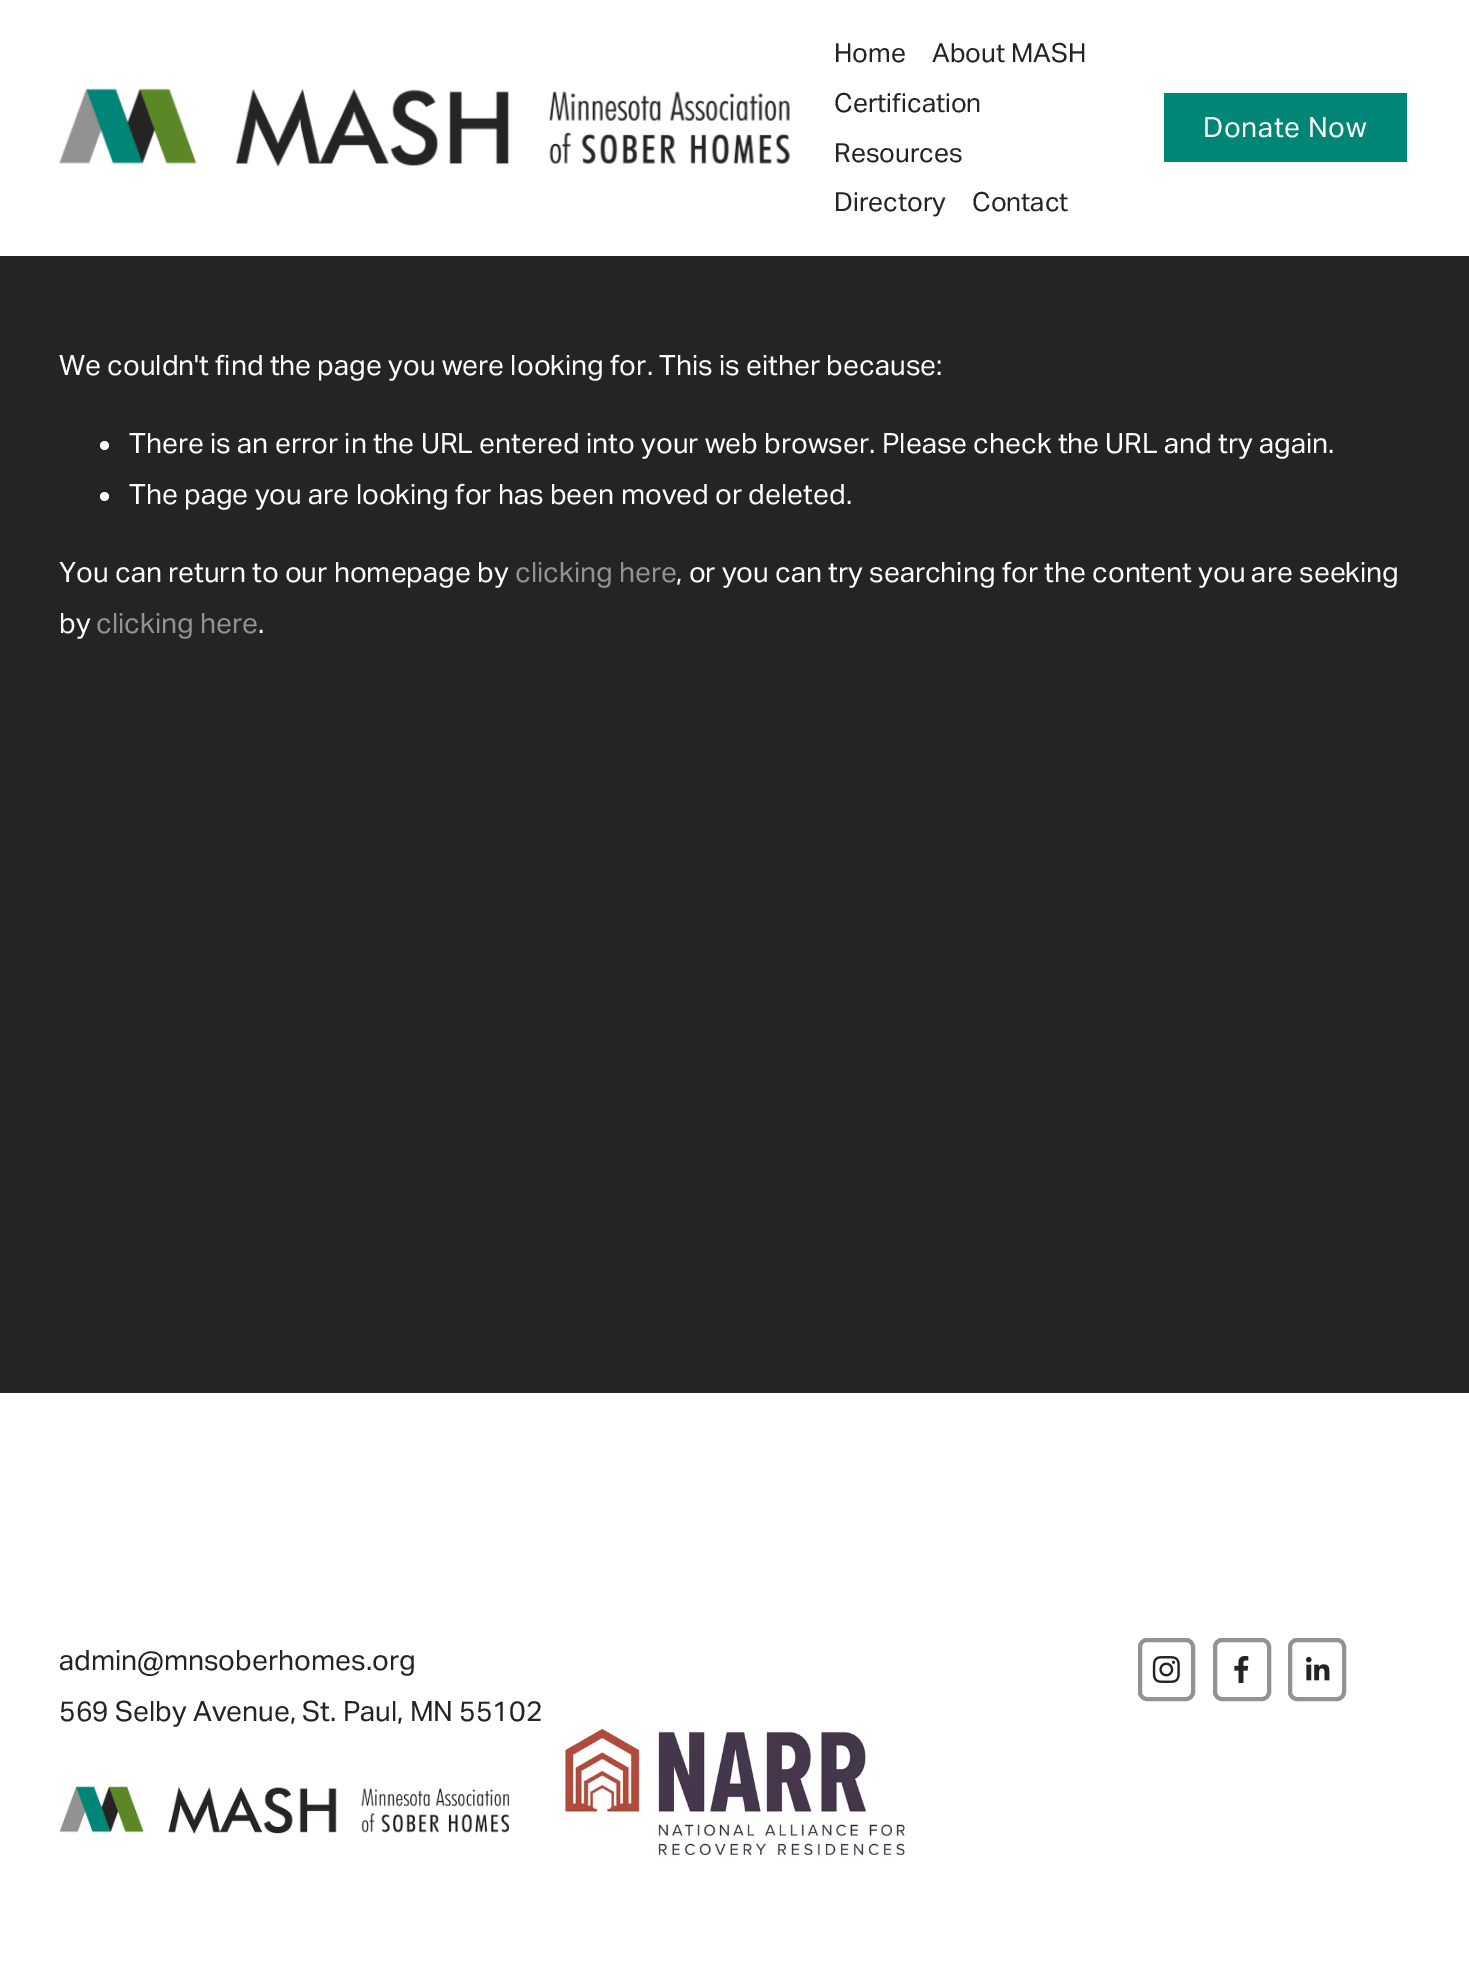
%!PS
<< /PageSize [1469 1980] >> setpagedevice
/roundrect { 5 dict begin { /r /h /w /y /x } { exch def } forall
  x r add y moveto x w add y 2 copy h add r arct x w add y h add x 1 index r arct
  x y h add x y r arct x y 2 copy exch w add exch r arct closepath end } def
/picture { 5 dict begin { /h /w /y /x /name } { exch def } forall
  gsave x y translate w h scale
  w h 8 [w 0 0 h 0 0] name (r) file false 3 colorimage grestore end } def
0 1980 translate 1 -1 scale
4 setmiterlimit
0.149 0.137 0.141 setrgbcolor
0 0 1469 1980 rectfill
1 setgray
0 0 1469 256 rectfill
(img1.rgb) 59 88 731 78 picture
/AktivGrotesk-Regular [26.25 0 0 -26.25 0 0] selectfont
0.149 0.137 0.141 setrgbcolor
834 62 moveto (Home) show
932 62 moveto (About MASH) show
834 112 moveto (Certification) show
834 162 moveto (Resources) show
834 211 moveto (Directory) show
972 211 moveto (Contact) show
0 0.522 0.463 setrgbcolor
1164 93 243 69 rectfill
/AktivGrotesk-Regular [28 0 0 -28 0 0] selectfont
1 setgray
1203 137 moveto 0.75 0 (Donate Now) ashow
59 375 moveto (We couldn't find the page you were looking for. This is either because:) show
newpath 104.5 445.5 4.5 0 360 arc closepath fill
129 453 moveto (There is an error in the URL entered into your web browser. Please check the URL and try again.) show
newpath 104.5 496.5 4.5 0 360 arc closepath fill
129 504 moveto (The page you are looking for has been moved or deleted.) show
59 582 moveto (You can return to our homepage by) show
0.576 0.569 0.573 setrgbcolor
515 582 moveto (clicking here) show
1 setgray
676 582 moveto (, or you can try searching for the content you are seeking) show
59 633 moveto (by) show
0.576 0.569 0.573 setrgbcolor
96 633 moveto (clicking here) show
1 setgray
258 633 moveto (.) show
0 1393 1469 587 rectfill
0.149 0.137 0.141 setrgbcolor
59 1670 moveto (admin@mnsoberhomes.org) show
59 1721 moveto (569 Selby Avenue, St. Paul, MN 55102) show
0.576 0.569 0.573 setrgbcolor
4 setlinewidth
1140 1640 53 59 7 roundrect stroke
(img2.rgb) 1152 1656 28 27 picture
1215 1640 54 59 7 roundrect stroke
(img3.rgb) 1234 1656 15 27 picture
1290 1640 54 59 7 roundrect stroke
(img4.rgb) 1306 1656 24 25 picture
(img5.rgb) 59 1786 451 48 picture
(img6.rgb) 565 1729 340 126 picture
showpage
